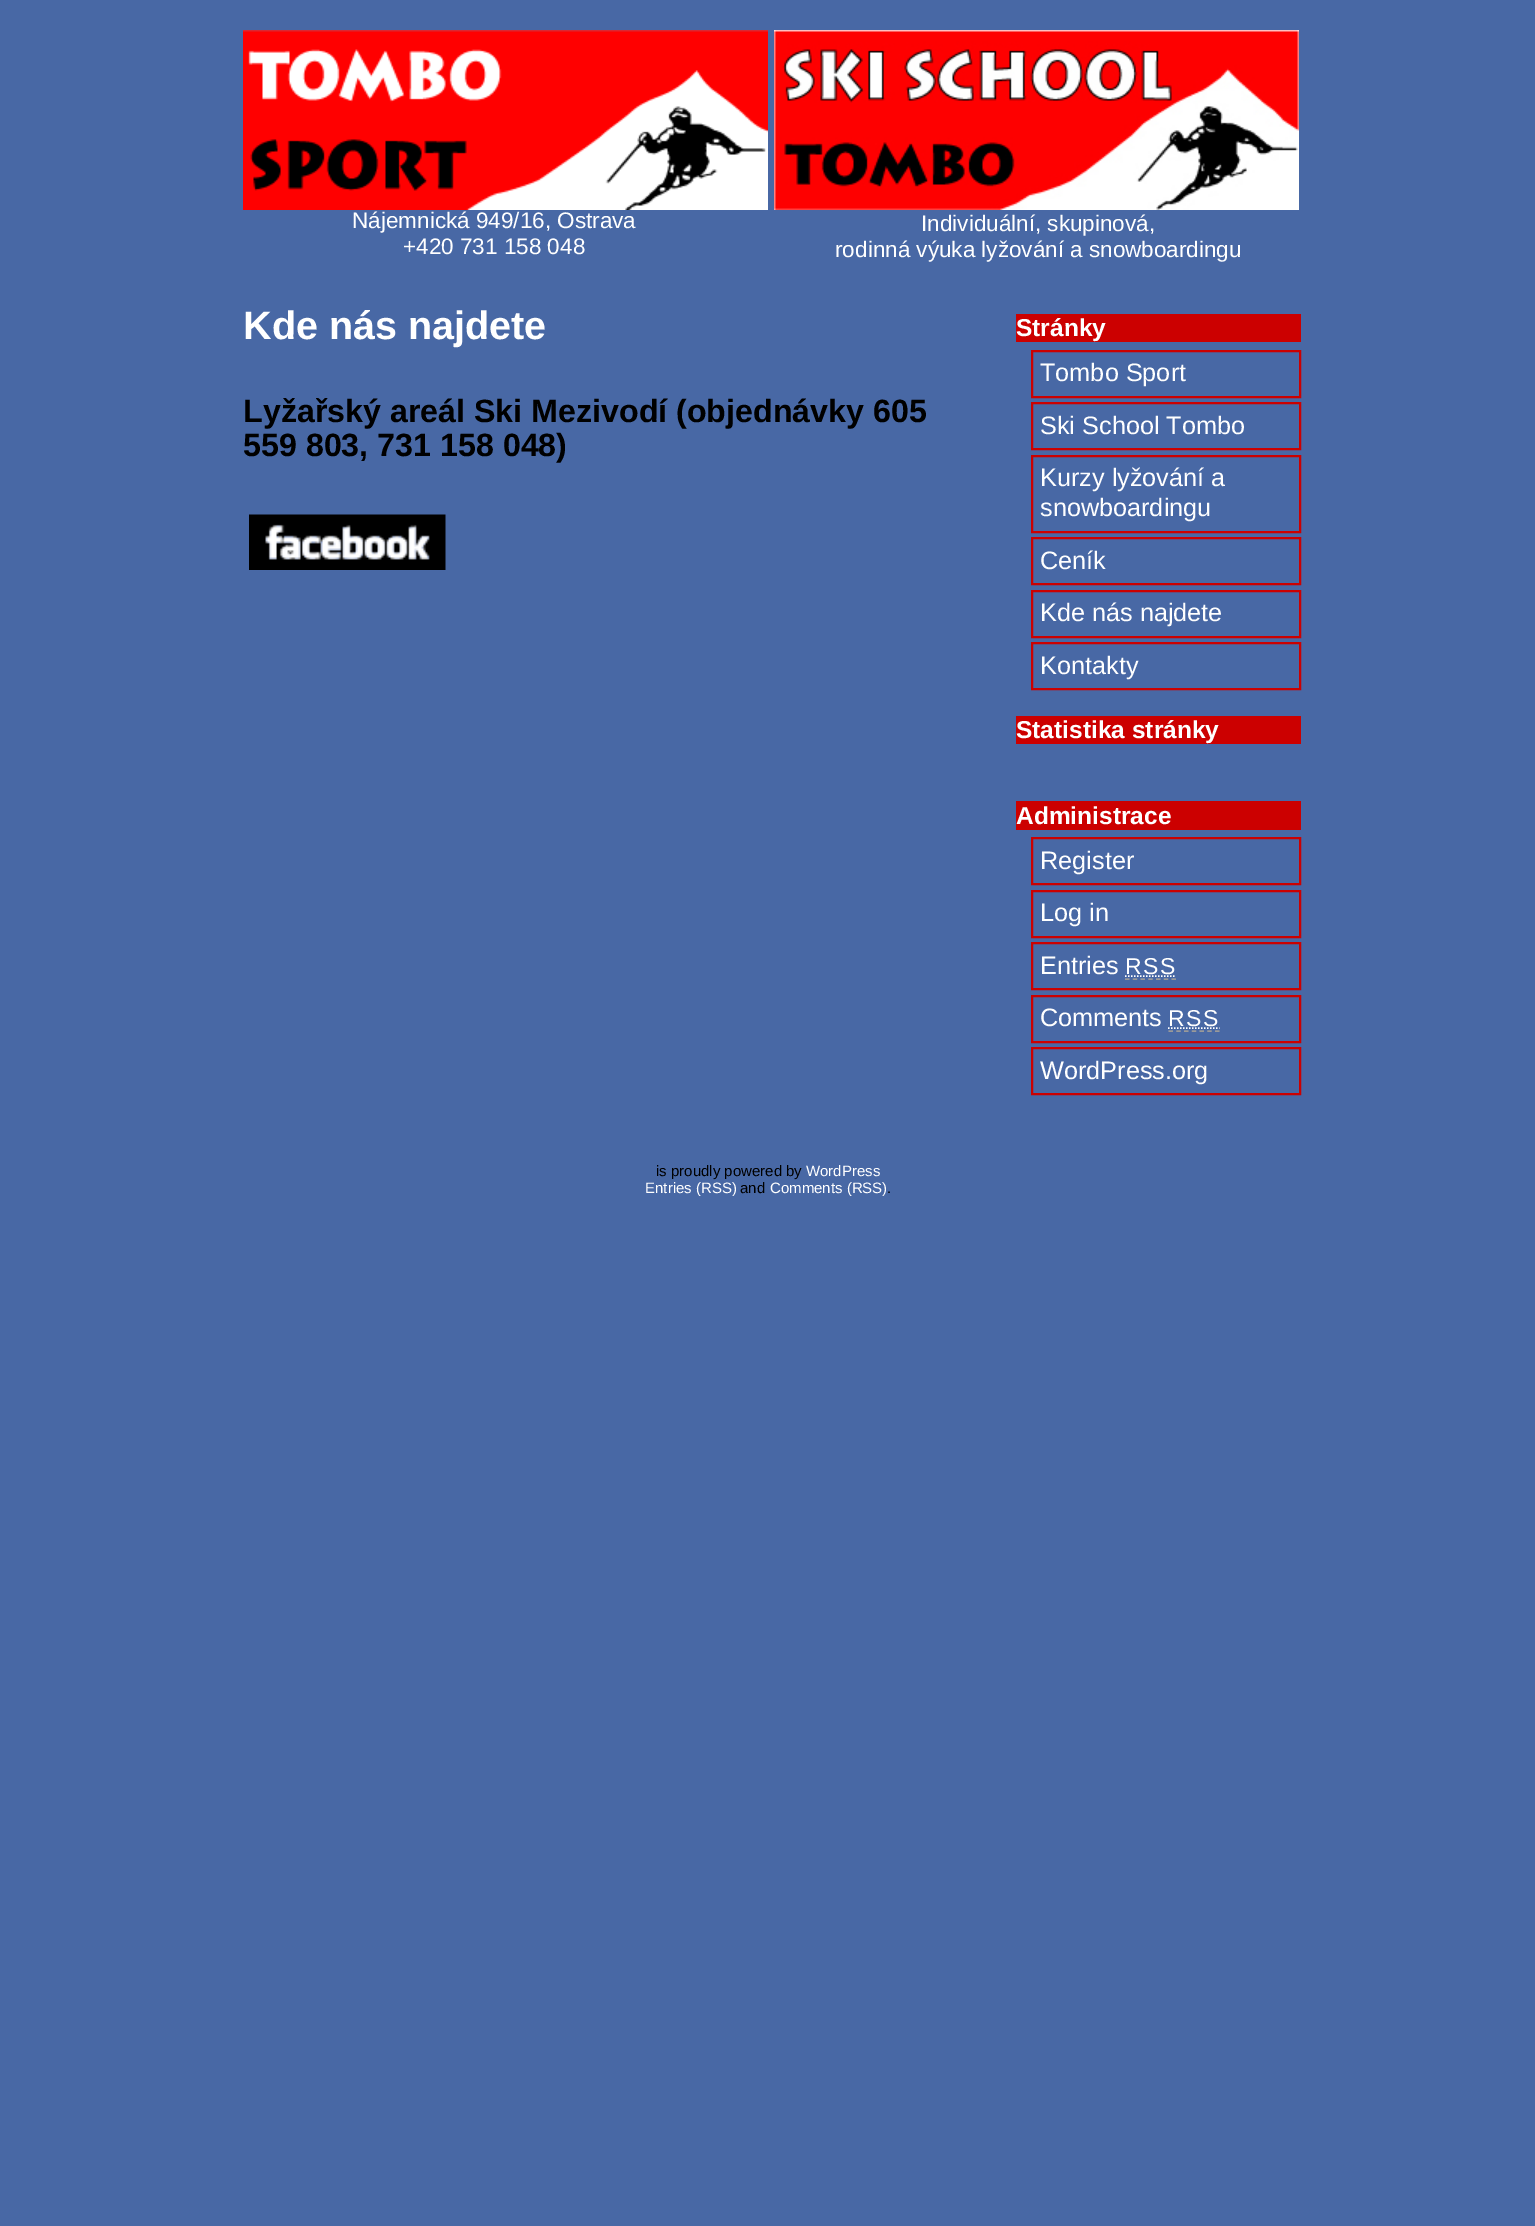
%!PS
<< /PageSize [1535 2226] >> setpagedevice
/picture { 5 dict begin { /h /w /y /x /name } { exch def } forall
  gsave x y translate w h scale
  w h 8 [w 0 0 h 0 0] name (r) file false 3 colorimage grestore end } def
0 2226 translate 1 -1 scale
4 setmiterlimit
0.282 0.408 0.647 setrgbcolor
0 0 1535 2226 rectfill
(img1.rgb) 243 30 525 180 picture
(img2.rgb) 774 30 525 180 picture
/LiberationSans-Regular [22.5 0 0 -22.5 0 0] selectfont
1 setgray
352 228 moveto (Nájemnická 949/16, Ostrava) show
403 254 moveto (+420 731 158 048) show
921 231 moveto (Individuální, skupinová,) show
835 257 moveto (rodinná výuka lyžování a snowboardingu) show
/LiberationSans-Bold [39.5 0 0 -39.5 0 0] selectfont
243 339 moveto (Kde nás najdete) show
/LiberationSans-Bold [32.2 0 0 -32.2 0 0] selectfont
0 setgray
243 422 moveto (Lyžařský areál Ski Mezivodí \(objednávky 605) show
243 456 moveto (559 803, 731 158 048\)) show
(img3.rgb) 249 514 197 56 picture
0.8 0 0 setrgbcolor
1016 314 285 28 rectfill
/LiberationSans-Bold [24.5 0 0 -24.5 0 0] selectfont
1 setgray
1016 336 moveto (Stránky) show
0.8 0 0 setrgbcolor
2 setlinewidth
1032 351 268 46 rectstroke
/LiberationSans-Regular [25.25 0 0 -25.25 0 0] selectfont
1 setgray
1040 381 moveto (Tombo Sport) show
0.8 0 0 setrgbcolor
1032 403 268 46 rectstroke
1 setgray
1040 434 moveto (Ski School Tombo) show
0.8 0 0 setrgbcolor
1032 456 268 76 rectstroke
1 setgray
1040 486 moveto (Kurzy lyžování a) show
1040 516 moveto (snowboardingu) show
0.8 0 0 setrgbcolor
1032 538 268 46 rectstroke
1 setgray
1040 569 moveto (Ceník) show
0.8 0 0 setrgbcolor
1032 591 268 46 rectstroke
1 setgray
1040 621 moveto (Kde nás najdete) show
0.8 0 0 setrgbcolor
1032 643 268 46 rectstroke
1 setgray
1040 674 moveto (Kontakty) show
0.8 0 0 setrgbcolor
1016 716 285 28 rectfill
/LiberationSans-Bold [24.5 0 0 -24.5 0 0] selectfont
1 setgray
1016 738 moveto (Statistika stránky) show
0.8 0 0 setrgbcolor
1016 801 285 29 rectfill
1 setgray
1016 824 moveto (Administrace) show
0.8 0 0 setrgbcolor
1032 838 268 46 rectstroke
/LiberationSans-Regular [25.25 0 0 -25.25 0 0] selectfont
1 setgray
1040 869 moveto (Register) show
0.8 0 0 setrgbcolor
1032 891 268 46 rectstroke
1 setgray
1040 921 moveto (Log in) show
0.8 0 0 setrgbcolor
1032 943 268 46 rectstroke
1 setgray
1040 974 moveto (Entries) show
/LiberationSans-Regular [23 0 0 -23 0 0] selectfont
1125 974 moveto 1.5 0 (RSS) ashow
0.6 setgray
1.5 setlinewidth
[4.5 3.25] 0 setdash
newpath 1125 979 moveto 1176 979 lineto stroke
1 setgray
[1.5 1.5] 0 setdash
newpath 1125 976 moveto 1176 976 lineto stroke
0.8 0 0 setrgbcolor
2 setlinewidth
[] 0 setdash
1032 996 268 46 rectstroke
/LiberationSans-Regular [25.25 0 0 -25.25 0 0] selectfont
1 setgray
1040 1026 moveto (Comments) show
/LiberationSans-Regular [23 0 0 -23 0 0] selectfont
1168 1026 moveto 1.5 0 (RSS) ashow
0.6 setgray
1.5 setlinewidth
[4.5 3.25] 0 setdash
newpath 1168.5 1031 moveto 1219.5 1031 lineto stroke
1 setgray
[1.5 1.5] 0 setdash
newpath 1168 1028 moveto 1219.5 1028 lineto stroke
0.8 0 0 setrgbcolor
2 setlinewidth
[] 0 setdash
1032 1048 268 46 rectstroke
/LiberationSans-Regular [25.25 0 0 -25.25 0 0] selectfont
1 setgray
1040 1079 moveto (WordPress.org) show
/LiberationSans-Regular [15 0 0 -15 0 0] selectfont
0 setgray
656 1176 moveto (is proudly powered by) show
1 setgray
806 1176 moveto (WordPress) show
645 1193 moveto (Entries \(RSS\)) show
0 setgray
740 1193 moveto (and) show
1 setgray
770 1193 moveto (Comments \(RSS\)) show
0 setgray
887 1193 moveto (.) show
showpage
